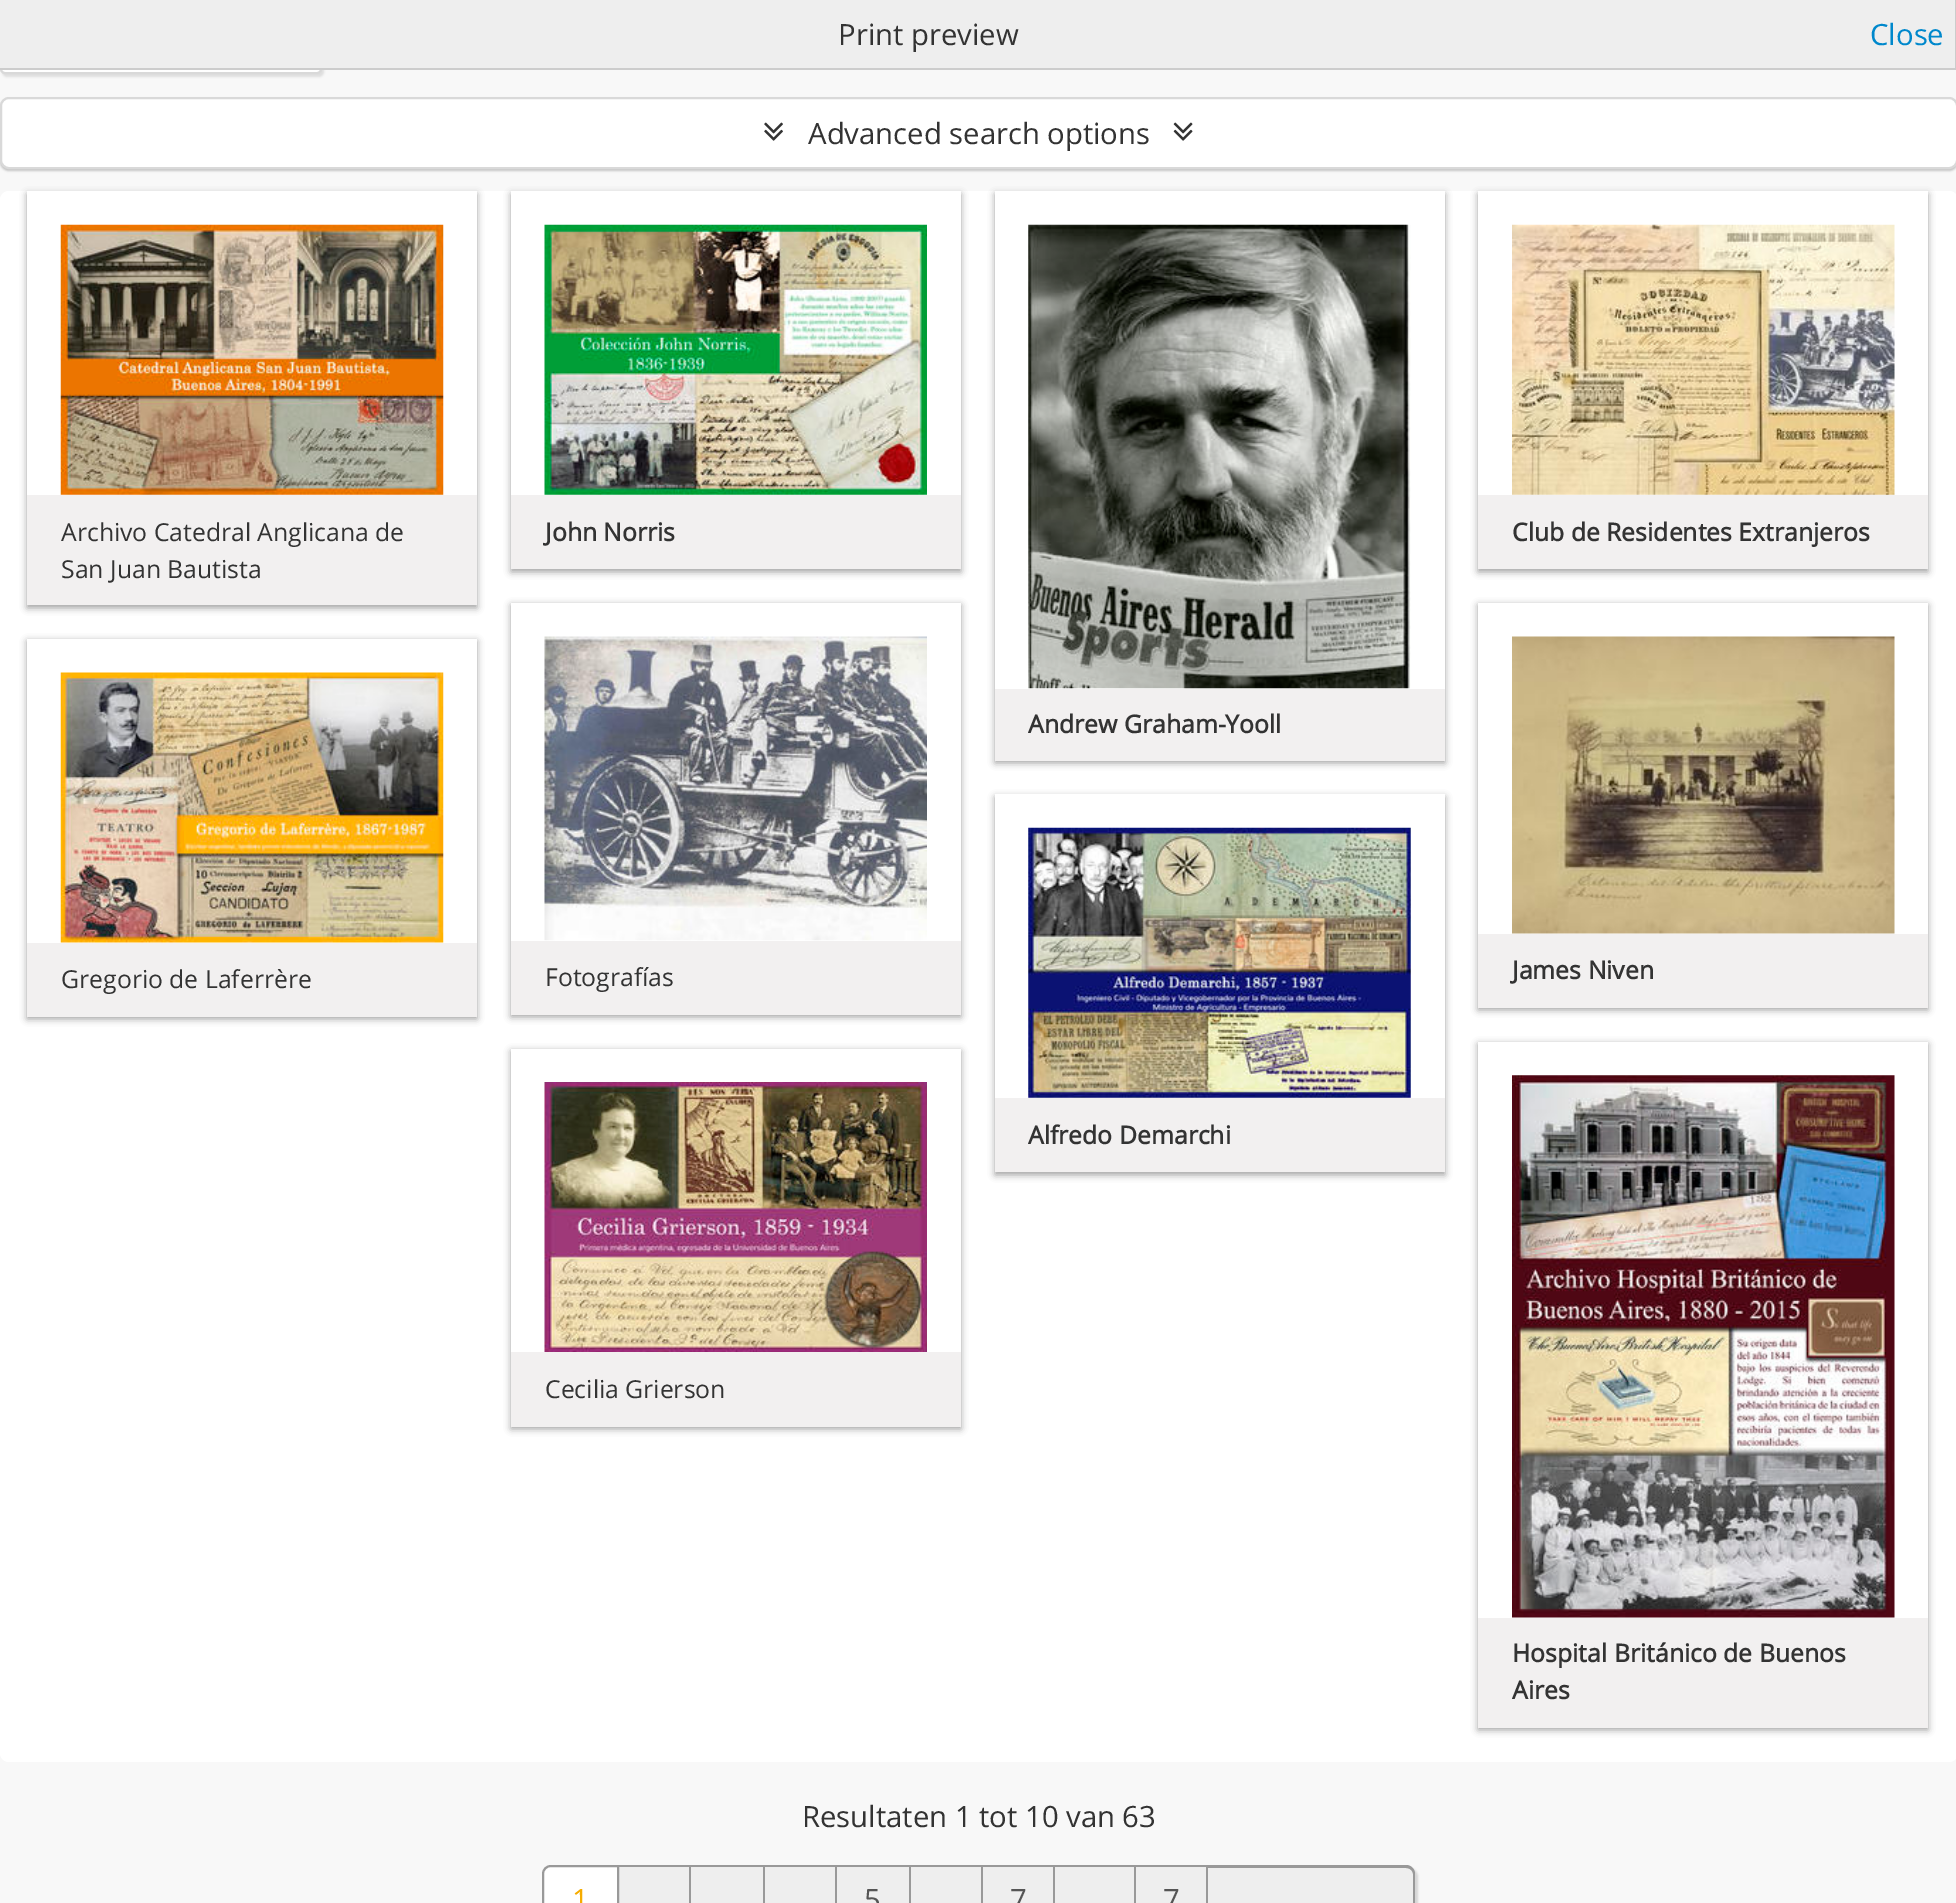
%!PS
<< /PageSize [1956 1903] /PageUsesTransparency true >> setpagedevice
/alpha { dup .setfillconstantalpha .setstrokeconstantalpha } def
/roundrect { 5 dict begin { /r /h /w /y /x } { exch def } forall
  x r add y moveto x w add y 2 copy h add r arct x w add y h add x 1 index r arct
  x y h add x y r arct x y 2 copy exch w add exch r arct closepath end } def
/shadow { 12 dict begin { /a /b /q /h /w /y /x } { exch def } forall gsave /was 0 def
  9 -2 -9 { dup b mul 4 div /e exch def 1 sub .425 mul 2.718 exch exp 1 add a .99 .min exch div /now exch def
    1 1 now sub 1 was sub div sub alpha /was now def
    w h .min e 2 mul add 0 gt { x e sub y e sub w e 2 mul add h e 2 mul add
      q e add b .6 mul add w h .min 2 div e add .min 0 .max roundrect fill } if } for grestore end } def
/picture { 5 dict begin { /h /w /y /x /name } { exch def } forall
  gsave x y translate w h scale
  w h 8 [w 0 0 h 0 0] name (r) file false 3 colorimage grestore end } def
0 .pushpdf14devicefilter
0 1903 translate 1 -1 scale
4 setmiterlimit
0.973 setgray
0 0 1956 1903 rectfill
0 setgray
2 14 322 63 5 1 0.1 shadow
1 setgray
1 12 320 61 4 roundrect gsave fill grestore
0.851 setgray
2 setlinewidth
stroke
0.933 setgray
0 0 1955 68 rectfill
0.8 setgray
1955 0 1 70 rectfill
0 68 1956 2 rectfill
/OpenSans-Regular [29.25 0 0 -29.25 0 0] selectfont
0.2 setgray
838 45 moveto (Print preview) show
0 0.533 0.8 setrgbcolor
1870 45 moveto (Close) show
0 setgray
0 99 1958 72 9 1 0.2 shadow
1 setgray
1 98 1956 70 8 roundrect gsave fill grestore
0.851 setgray
stroke
(img1.rgb) 764 122 19 19 picture
0.2 setgray
808 144 moveto (Advanced search options) show
(img2.rgb) 1173 122 20 19 picture
1 setgray
0 191 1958 1571 9 roundrect fill
0.098 setgray
27 194 450 414 0 3.5 0.4 shadow
1 setgray
27 191 450 304 rectfill
(img3.rgb) 60 224 384 271 picture
0.949 0.941 0.941 setrgbcolor
27 495 450 110 rectfill
/OpenSans-Regular [24.75 0 0 -24.75 0 0] selectfont
0.2 setgray
61 541 moveto (Archivo Catedral Anglicana de) show
61 578 moveto (San Juan Bautista) show
0.098 setgray
511 194 450 378 0 3.5 0.4 shadow
1 setgray
511 191 450 304 rectfill
(img4.rgb) 544 224 383 271 picture
0.949 0.941 0.941 setrgbcolor
511 495 450 74 rectfill
/OpenSans-Bold [24.75 0 0 -24.75 0 0] selectfont
0.2 setgray
545 541 moveto (John Norris) show
0.098 setgray
1478 194 450 378 0 3.5 0.4 shadow
1 setgray
1478 191 450 304 rectfill
(img5.rgb) 1512 224 383 271 picture
0.949 0.941 0.941 setrgbcolor
1478 495 450 74 rectfill
0.2 setgray
1512 541 moveto (Club de Residentes Extranjeros) show
0.098 setgray
995 194 450 569 0 3.5 0.4 shadow
1 setgray
995 191 450 498 rectfill
(img6.rgb) 1028 224 383 465 picture
0.949 0.941 0.941 setrgbcolor
995 689 450 72 rectfill
0.2 setgray
1028 733 moveto (Andrew Graham-Yooll) show
gsave
newpath 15 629 moveto 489 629 lineto 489 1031 lineto 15 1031 lineto closepath 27 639 moveto 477 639 lineto 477 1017 lineto 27 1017 lineto closepath eoclip newpath
0.098 setgray
27 641 450 378 0 3.5 0.4 shadow
grestore
(img7.rgb) 60 672 384 271 picture
0.949 0.941 0.941 setrgbcolor
27 943 450 74 rectfill
/OpenSans-Regular [24.75 0 0 -24.75 0 0] selectfont
0.2 setgray
61 988 moveto (Gregorio de Laferrère) show
0.098 setgray
511 605 450 412 0 3.5 0.4 shadow
1 setgray
511 603 450 338 rectfill
(img8.rgb) 544 636 383 305 picture
0.949 0.941 0.941 setrgbcolor
511 941 450 74 rectfill
0.2 setgray
545 986 moveto (Fotografías) show
0.098 setgray
1478 605 450 405 0 3.5 0.4 shadow
1 setgray
1478 603 450 331 rectfill
(img9.rgb) 1512 636 383 298 picture
0.949 0.941 0.941 setrgbcolor
1478 934 450 74 rectfill
/OpenSans-Bold [24.75 0 0 -24.75 0 0] selectfont
0.2 setgray
1512 979 moveto (James Niven) show
0.098 setgray
995 797 450 378 0 3.5 0.4 shadow
1 setgray
995 794 450 304 rectfill
(img10.rgb) 1028 827 383 271 picture
0.949 0.941 0.941 setrgbcolor
995 1098 450 74 rectfill
0.2 setgray
1028 1144 moveto (Alfredo Demarchi) show
0.098 setgray
511 1051 450 378 0 3.5 0.4 shadow
1 setgray
511 1049 450 303 rectfill
(img11.rgb) 544 1082 383 270 picture
0.949 0.941 0.941 setrgbcolor
511 1352 450 75 rectfill
/OpenSans-Regular [24.75 0 0 -24.75 0 0] selectfont
0.2 setgray
545 1398 moveto (Cecilia Grierson) show
0.098 setgray
1478 1044 450 686 0 3.5 0.4 shadow
1 setgray
1478 1042 450 576 rectfill
(img12.rgb) 1512 1075 383 543 picture
0.949 0.941 0.941 setrgbcolor
1478 1618 450 110 rectfill
/OpenSans-Bold [24.75 0 0 -24.75 0 0] selectfont
0.2 setgray
1512 1662 moveto (Hospital Británico de Buenos) show
1512 1699 moveto (Aires) show
/OpenSans-Regular [29.25 0 0 -29.25 0 0] selectfont
802 1827 moveto (Resultaten 1 tot 10 van 63) show
0.098 setgray
545 1868 873 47 9 1 0.15 shadow
0.933 setgray
619 1868 70 35 rectfill
0.6 setgray
619 1865 589 2 rectfill
689 1865 2 38 rectfill
1 setgray
newpath 551 1866 moveto 618 1866 lineto 618 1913 lineto 551 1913 lineto 546.5 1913 543 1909.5 543 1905 curveto 543 1874 lineto 543 1869.5 546.5 1866 551 1866 curveto closepath gsave fill grestore
0.6 setgray
stroke
0.965 0.675 0 setrgbcolor
572 1910 moveto (1) show
0.933 setgray
691 1868 72 35 rectfill
0.6 setgray
763 1865 2 38 rectfill
0.933 setgray
765 1868 70 35 rectfill
0.6 setgray
835 1865 2 38 rectfill
0.933 setgray
837 1868 72 35 rectfill
0.6 setgray
909 1865 2 38 rectfill
0.333 setgray
864 1910 moveto (5) show
0.933 setgray
911 1868 70 35 rectfill
0.6 setgray
981 1865 2 38 rectfill
0.933 setgray
983 1868 70 35 rectfill
0.6 setgray
1053 1865 2 38 rectfill
0.333 setgray
1010 1910 moveto (7) show
0.933 setgray
1055 1868 79 35 rectfill
0.6 setgray
1134 1865 2 38 rectfill
0.933 setgray
1136 1868 70 35 rectfill
0.6 setgray
1206 1865 2 38 rectfill
0.333 setgray
1163 1910 moveto (7) show
0.933 setgray
newpath 1208 1868 moveto 1406 1868 lineto 1410 1868 1413 1871 1413 1875 curveto 1413 1903 lineto 1413 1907 1410 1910 1406 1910 curveto 1208 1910 lineto closepath fill
0.6 setgray
newpath 1208 1865 moveto 1406 1865 lineto 1411 1865 1415 1869 1415 1874 curveto 1415 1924 lineto 1415 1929 1411 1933 1406 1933 curveto 1208 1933 lineto closepath 1208 1868 moveto 1406 1868 lineto 1410 1868 1413 1871 1413 1874 curveto 1413 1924 lineto 1413 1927 1410 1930 1406 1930 curveto 1208 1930 lineto closepath eofill
.poppdf14devicefilter showpage
